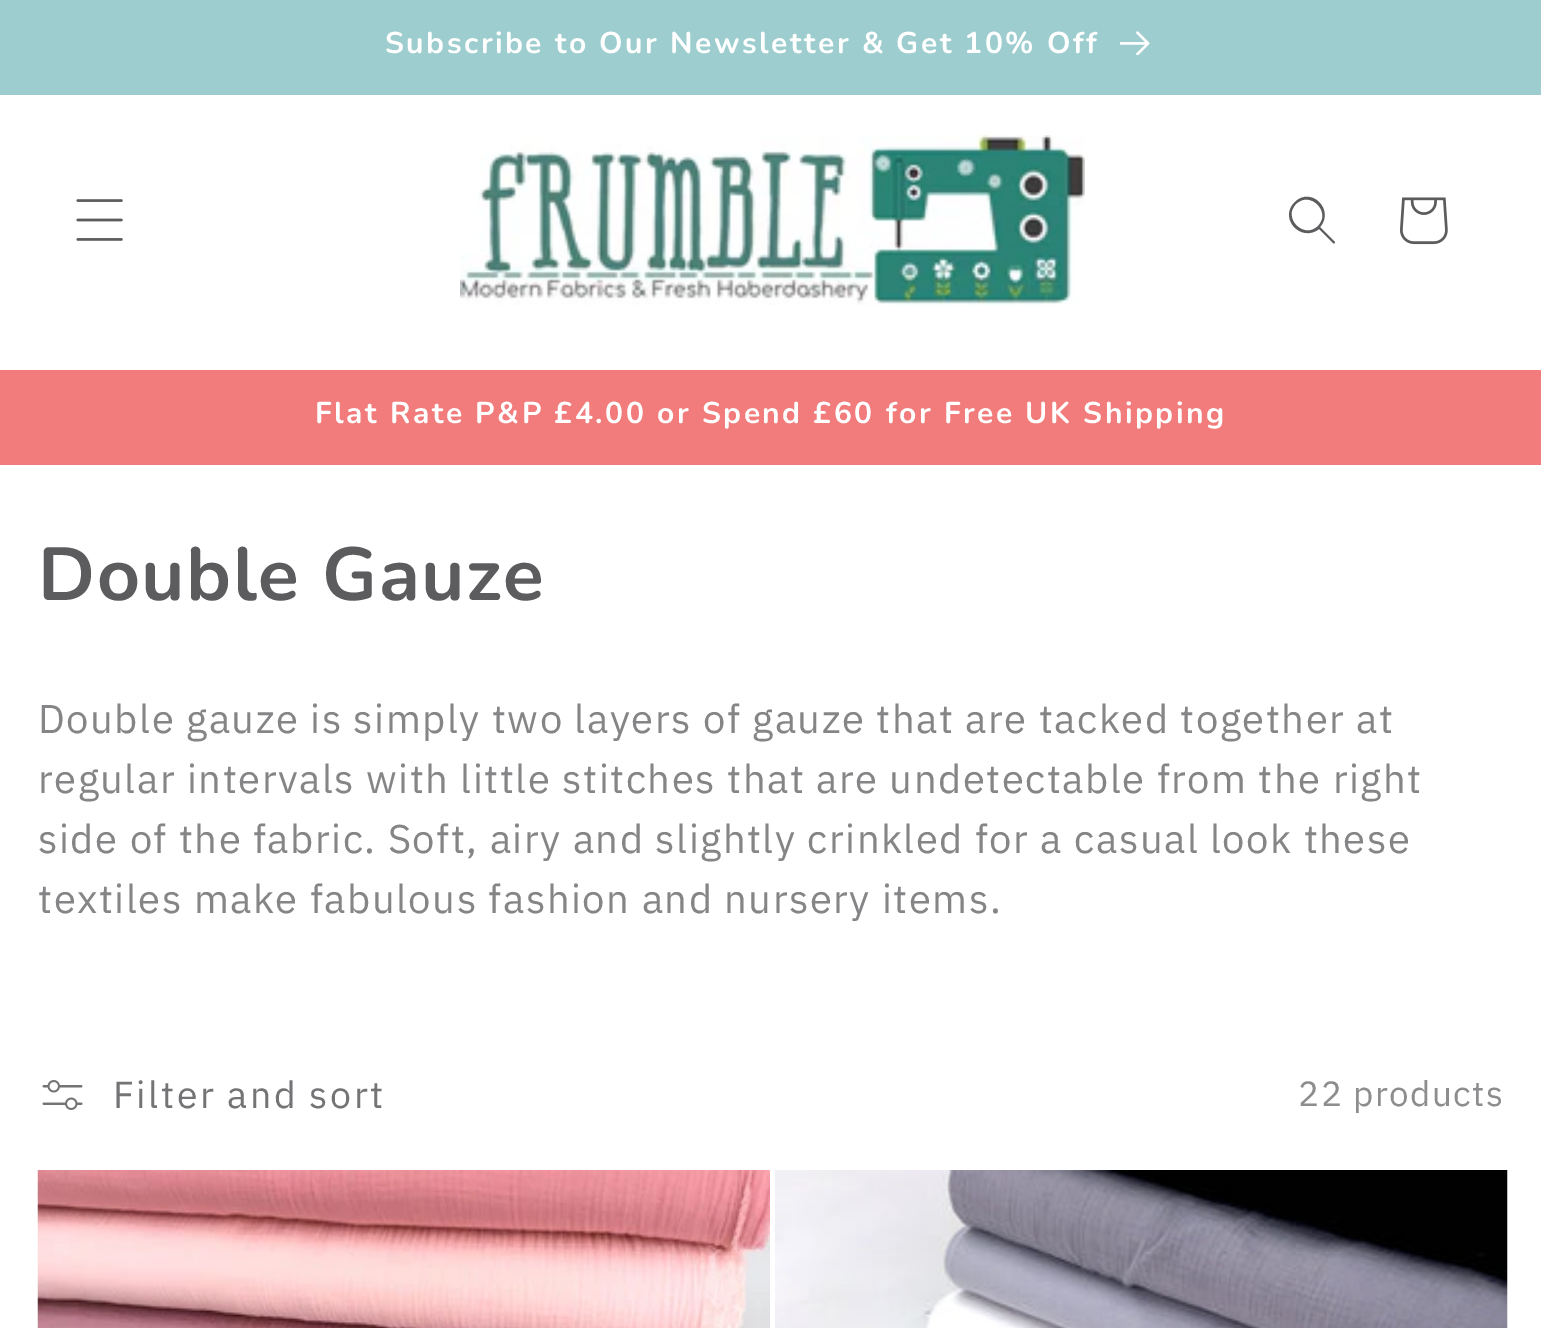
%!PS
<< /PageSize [1541 1328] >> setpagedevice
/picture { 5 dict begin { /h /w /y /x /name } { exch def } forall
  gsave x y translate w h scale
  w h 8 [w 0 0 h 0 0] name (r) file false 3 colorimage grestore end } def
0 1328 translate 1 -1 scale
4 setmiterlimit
1 setgray
0 0 1541 1328 rectfill
0.616 0.804 0.808 setrgbcolor
0 0 1541 95 rectfill
/Nunito-Bold [30 0 0 -30 0 0] selectfont
1 setgray
385 53 moveto 2.5 0 (Subscribe to Our Newsletter & Get 10% Off) ashow
(img1.rgb) 1120 31 30 24 picture
(img2.rgb) 76 199 47 42 picture
(img3.rgb) 460 135 625 170 picture
0.361 0.361 0.373 setrgbcolor
newpath 1318 226 moveto 1304 240 1282 218 1296 204 curveto 1310 190 1332 212 1318 226 curveto 1319 229 moveto 1301 243 1278 218 1295 202 curveto 1311 186 1335 210 1320 227 curveto 1335 242 lineto 1335 243 1334 244 1333 243 curveto closepath eofill
(img4.rgb) 1400 197 48 48 picture
0.949 0.482 0.482 setrgbcolor
0 370 1541 95 rectfill
1 setgray
315 423 moveto 2.5 0 (Flat Rate P&P £4.00 or Spend £60 for Free UK Shipping) ashow
/Nunito-Bold [75 0 0 -75 0 0] selectfont
0.361 0.361 0.373 setrgbcolor
38 600 moveto 1.5 0 (Double Gauze) ashow
/IBMPlexSans-Regular [40 0 0 -40 0 0] selectfont
0.522 0.522 0.529 setrgbcolor
38 733 moveto 1.5 0 (Double gauze is simply two layers of gauze that are tacked together at) ashow
38 793 moveto 1.5 0 (regular intervals with little stitches that are undetectable from the right) ashow
38 853 moveto 1.5 0 (side of the fabric. Soft, airy and slightly crinkled for a casual look these) ashow
38 913 moveto 1.5 0 (textiles make fabulous fashion and nursery items.) ashow
(img5.rgb) 42 1080 41 30 picture
/IBMPlexSans-Regular [37.5 0 0 -37.5 0 0] selectfont
0.455 0.455 0.467 setrgbcolor
113 1108 moveto 2.5 0 (Filter and sort) ashow
/IBMPlexSans-Regular [35 0 0 -35 0 0] selectfont
0.553 0.553 0.561 setrgbcolor
1298 1106 moveto 1.5 0 (22 products) ashow
(img6.rgb) 37 1170 733 158 picture
(img7.rgb) 775 1170 733 158 picture
showpage
